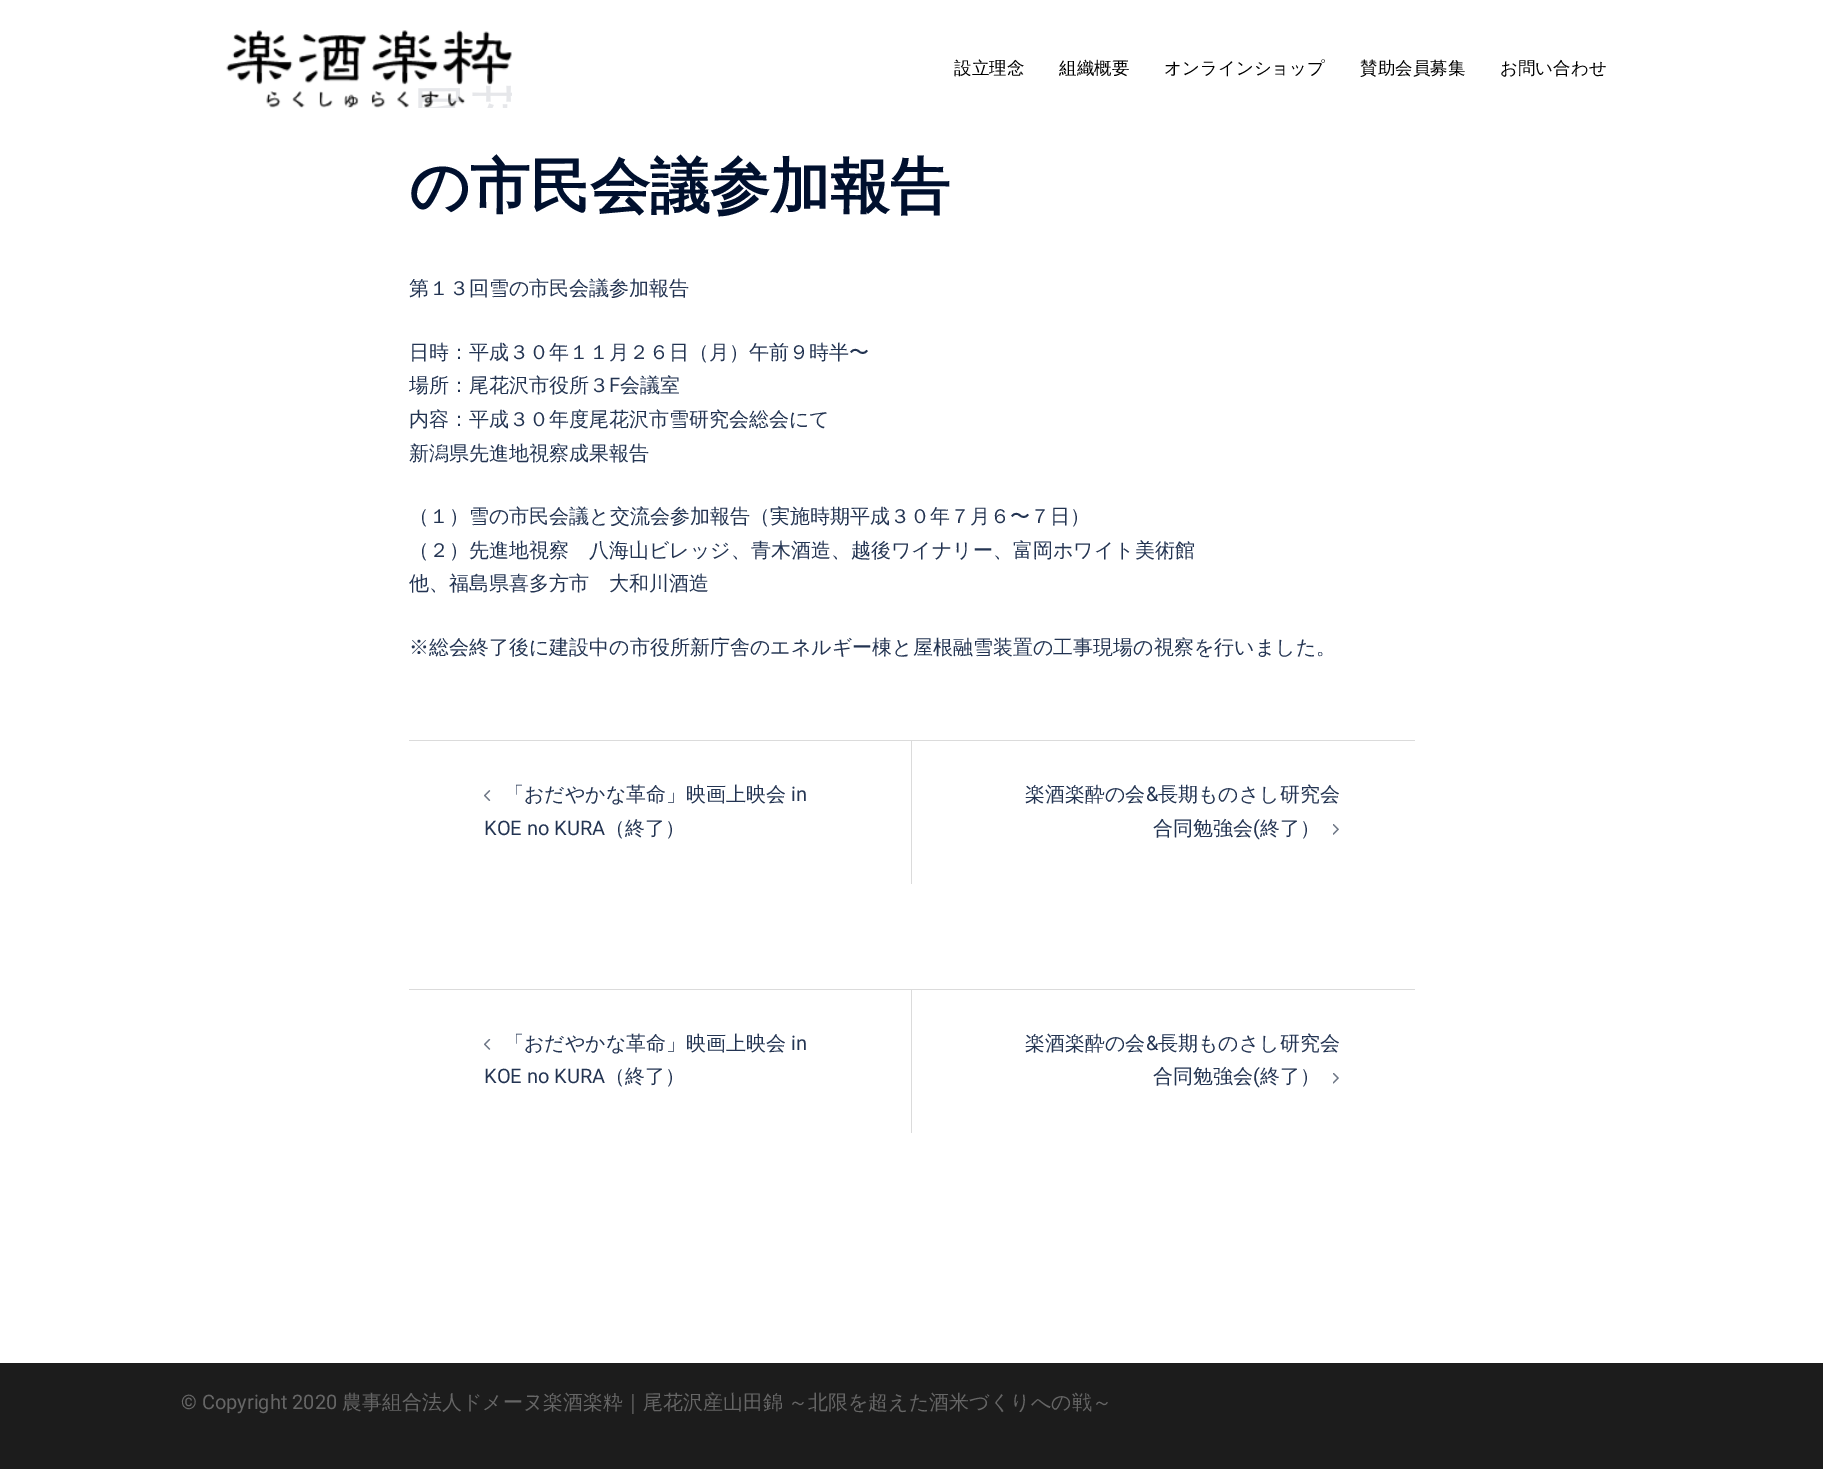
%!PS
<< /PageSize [1823 1469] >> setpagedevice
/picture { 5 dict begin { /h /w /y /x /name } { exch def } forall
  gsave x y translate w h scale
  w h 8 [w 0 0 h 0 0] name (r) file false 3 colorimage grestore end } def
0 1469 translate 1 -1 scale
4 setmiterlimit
1 setgray
0 0 1823 1469 rectfill
(img1.rgb) 226 30 286 78 picture
/WenQuanYiZenHei-Medium [17.5 0 0 -17.5 0 0] selectfont
0 setgray
954 74 moveto (設立理念) show
1059 74 moveto (組織概要) show
1164 74 moveto (オンラインショップ) show
1360 74 moveto (賛助会員募集) show
1500 74 moveto (お問い合わせ) show
/WenQuanYiZenHei-Bold [60 0 0 -60 0 0] selectfont
0 0.063 0.18 setrgbcolor
409 207 moveto (の市民会議参加報告) show
/WenQuanYiZenHei-Medium [20 0 0 -20 0 0] selectfont
0.137 0.204 0.322 setrgbcolor
409 295 moveto (第１３回雪の市民会議参加報告) show
409 359 moveto (日時：平成３０年１１月２６日（月）午前９時半〜) show
409 392 moveto (場所：尾花沢市役所３) show
/Roboto-Regular [20 0 0 -20 0 0] selectfont
609 392 moveto (F) show
/WenQuanYiZenHei-Medium [20 0 0 -20 0 0] selectfont
620 392 moveto (会議室) show
409 426 moveto (内容：平成３０年度尾花沢市雪研究会総会にて) show
409 460 moveto (新潟県先進地視察成果報告) show
409 523 moveto (（１）雪の市民会議と交流会参加報告（実施時期平成３０年７月６〜７日）) show
409 557 moveto (（２）先進地視察　八海山ビレッジ、青木酒造、越後ワイナリー、富岡ホワイト美術館) show
409 590 moveto (他、福島県喜多方市　大和川酒造) show
409 654 moveto (※総会終了後に建設中の市役所新庁舎のエネルギー棟と屋根融雪装置の工事現場の視察を行いました。) show
0.859 setgray
409 740 1006 1 rectfill
911 741 1 143 rectfill
(img2.rgb) 484 790 7 11 picture
0.137 0.204 0.322 setrgbcolor
504 801 moveto (「おだやかな革命」映画上映会) show
/Roboto-Regular [20 0 0 -20 0 0] selectfont
791 801 moveto (in) show
484 835 moveto (KOE no KURA) show
/WenQuanYiZenHei-Medium [20 0 0 -20 0 0] selectfont
605 835 moveto (（終了）) show
1025 801 moveto (楽酒楽酔の会) show
/Roboto-Regular [20 0 0 -20 0 0] selectfont
1146 801 moveto (&) show
/WenQuanYiZenHei-Medium [20 0 0 -20 0 0] selectfont
1158 801 moveto (長期ものさし研究会) show
1153 835 moveto (合同勉強会) show
/Roboto-Regular [20 0 0 -20 0 0] selectfont
1253 835 moveto (\() show
/WenQuanYiZenHei-Medium [20 0 0 -20 0 0] selectfont
1260 835 moveto (終了）) show
(img3.rgb) 1333 824 6 11 picture
0.859 setgray
409 989 1006 1 rectfill
911 990 1 143 rectfill
(img4.rgb) 484 1039 7 11 picture
0.137 0.204 0.322 setrgbcolor
504 1050 moveto (「おだやかな革命」映画上映会) show
/Roboto-Regular [20 0 0 -20 0 0] selectfont
791 1050 moveto (in) show
484 1083 moveto (KOE no KURA) show
/WenQuanYiZenHei-Medium [20 0 0 -20 0 0] selectfont
605 1083 moveto (（終了）) show
1025 1050 moveto (楽酒楽酔の会) show
/Roboto-Regular [20 0 0 -20 0 0] selectfont
1146 1050 moveto (&) show
/WenQuanYiZenHei-Medium [20 0 0 -20 0 0] selectfont
1158 1050 moveto (長期ものさし研究会) show
1153 1083 moveto (合同勉強会) show
/Roboto-Regular [20 0 0 -20 0 0] selectfont
1253 1083 moveto (\() show
/WenQuanYiZenHei-Medium [20 0 0 -20 0 0] selectfont
1260 1083 moveto (終了）) show
(img5.rgb) 1333 1073 6 11 picture
0.11 setgray
0 1363 1823 106 rectfill
/Roboto-Regular [20 0 0 -20 0 0] selectfont
0.4 setgray
181 1409 moveto (© Copyright 2020) show
/WenQuanYiZenHei-Medium [20 0 0 -20 0 0] selectfont
342 1409 moveto (農事組合法人ドメーヌ楽酒楽粋｜尾花沢産山田錦) show
788 1409 moveto (～北限を超えた酒米づくりへの戦～) show
showpage
